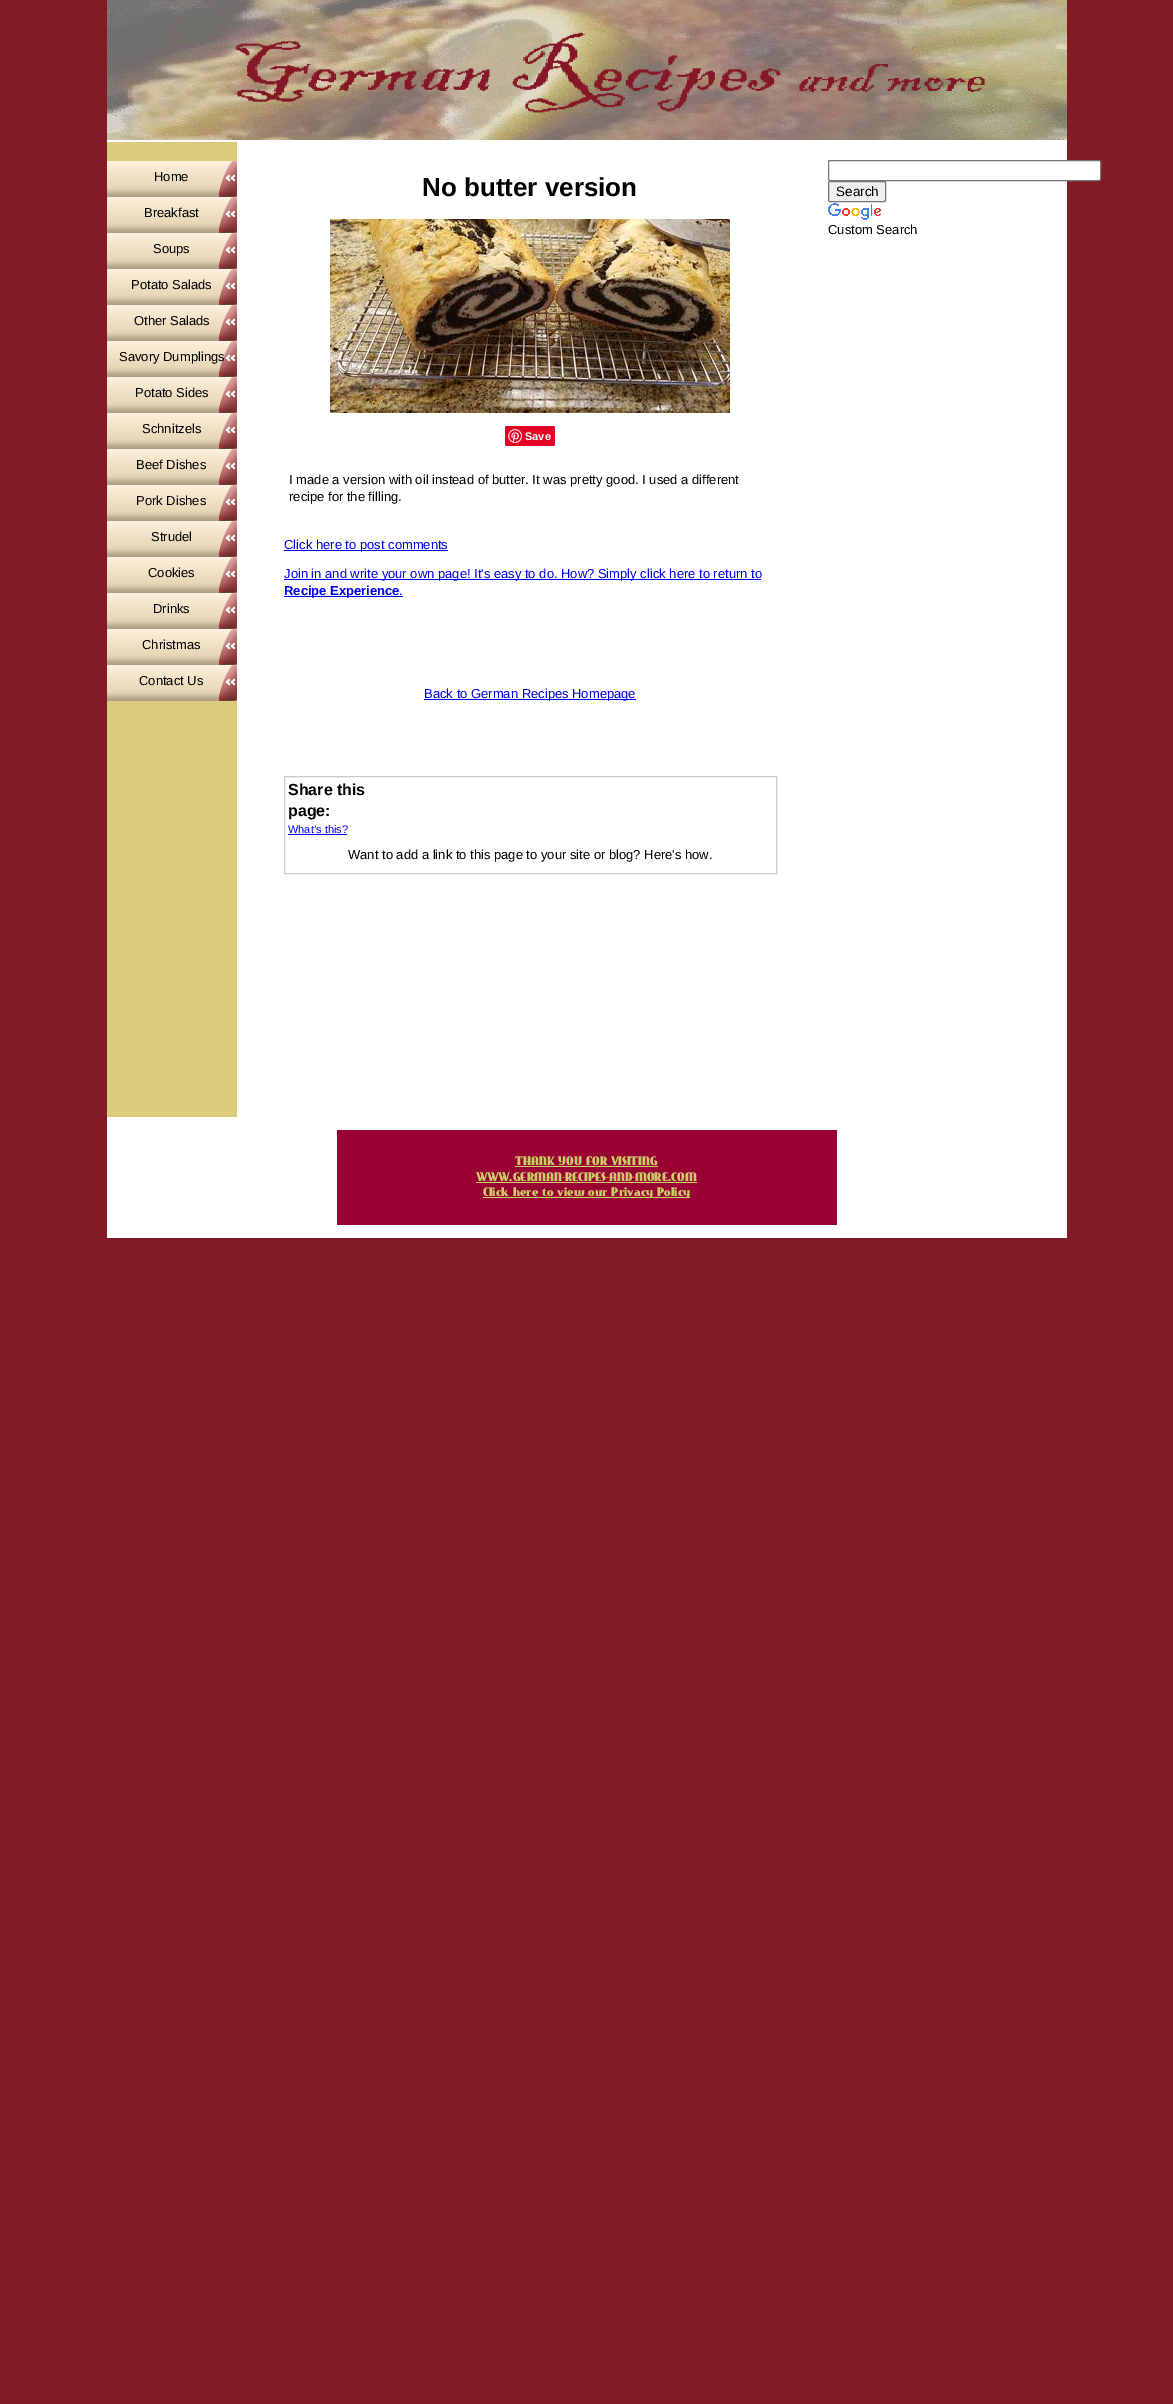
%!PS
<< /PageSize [1173 2404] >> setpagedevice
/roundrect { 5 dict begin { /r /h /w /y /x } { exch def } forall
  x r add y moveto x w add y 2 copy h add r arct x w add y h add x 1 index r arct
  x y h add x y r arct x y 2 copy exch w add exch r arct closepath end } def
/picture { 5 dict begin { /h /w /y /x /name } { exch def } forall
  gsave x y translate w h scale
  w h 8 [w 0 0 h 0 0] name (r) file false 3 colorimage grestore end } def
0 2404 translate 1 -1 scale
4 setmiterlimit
0.514 0.106 0.153 setrgbcolor
0 0 1173 2404 rectfill
1 setgray
107 140 960 1098 rectfill
(img1.rgb) 107 0 960 140 picture
0.863 0.796 0.49 setrgbcolor
107 142 130 975 rectfill
(img2.rgb) 107 161 130 36 picture
/LiberationSans-Regular [13 0 0 -13 0 0] selectfont
0 setgray
154 181 moveto (Home) show
(img2.rgb) 107 197 130 36 picture
144 217 moveto (Breakfast) show
(img2.rgb) 107 233 130 36 picture
153 253 moveto (Soups) show
(img2.rgb) 107 269 130 36 picture
131 289 moveto (Potato Salads) show
(img2.rgb) 107 305 130 36 picture
134 325 moveto (Other Salads) show
(img2.rgb) 107 341 130 36 picture
119 361 moveto (Savory Dumplings) show
(img2.rgb) 107 377 130 36 picture
135 397 moveto (Potato Sides) show
(img2.rgb) 107 413 130 36 picture
142 433 moveto (Schnitzels) show
(img2.rgb) 107 449 130 36 picture
136 469 moveto (Beef Dishes) show
(img2.rgb) 107 485 130 36 picture
136 505 moveto (Pork Dishes) show
(img2.rgb) 107 521 130 36 picture
151 541 moveto (Strudel) show
(img2.rgb) 107 557 130 36 picture
148 577 moveto (Cookies) show
(img2.rgb) 107 593 130 36 picture
153 613 moveto (Drinks) show
(img2.rgb) 107 629 130 36 picture
142 649 moveto (Christmas) show
(img2.rgb) 107 665 130 36 picture
139 685 moveto (Contact Us) show
/LiberationSans-Bold [26 0 0 -26 0 0] selectfont
422 196 moveto (No butter version) show
(img3.rgb) 330 219 400 194 picture
0.902 0 0.137 setrgbcolor
505 426 50 20 2 roundrect fill
(img4.rgb) 508 429 14 14 picture
/LiberationSans-Bold [11 0 0 -11 0 0] selectfont
1 setgray
525 440 moveto (Save) show
/LiberationSans-Regular [13 0 0 -13 0 0] selectfont
0 setgray
289 484 moveto (I made a version with oil instead of butter. It was pretty good. I used a different) show
289 501 moveto (recipe for the filling.) show
0 0 0.933 setrgbcolor
284 550 164 1 rectfill
284 549 moveto (Click here to post comments) show
284 579 477 1 rectfill
284 578 moveto (Join in and write your own page! It's easy to do. How? Simply click here to return to) show
284 596 119 1 rectfill
/LiberationSans-Bold [13 0 0 -13 0 0] selectfont
284 595 moveto (Recipe Experience) show
/LiberationSans-Regular [13 0 0 -13 0 0] selectfont
399 595 moveto (.) show
424 699 212 1 rectfill
424 698 moveto (Back to German Recipes Homepage) show
0.8 setgray
284.5 776.5 492 97 rectstroke
/LiberationSans-Bold [16 0 0 -16 0 0] selectfont
0 setgray
288 795 moveto (Share this) show
288 816 moveto (page:) show
/LiberationSans-Regular [11 0 0 -11 0 0] selectfont
0 0 0.933 setrgbcolor
288 833 moveto (What’s this?) show
288 834 59 1 rectfill
/LiberationSans-Regular [13 0 0 -13 0 0] selectfont
0 setgray
348 859 moveto (Want to add a link to this page to your site or blog? Here's how.) show
1 setgray
828.5 160.5 272 20 1.5 roundrect gsave fill grestore
0.463 setgray
stroke
0.937 setgray
828.5 181.5 57 20 1.5 roundrect gsave fill grestore
0.463 setgray
stroke
/LiberationSans-Regular [13.5 0 0 -13.5 0 0] selectfont
0 setgray
836 196 moveto (Search) show
(img5.rgb) 828 203 53 17 picture
/LiberationSans-Regular [13 0 0 -13 0 0] selectfont
828 234 moveto (Custom Search) show
0.6 0 0.2 setrgbcolor
337 1130 500 95 rectfill
/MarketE-Regular [12 0 0 -12 0 0] selectfont
0.8 0.8 0.4 setrgbcolor
515 1165 moveto (THANK YOU FOR VISITING) show
515 1166 143 1 rectfill
476 1181 moveto (WWW.GERMAN-RECIPES-AND-MORE.COM) show
476 1182 221 1 rectfill
483 1197 207 1 rectfill
483 1196 moveto (Click here to view our Privacy Policy) show
showpage
